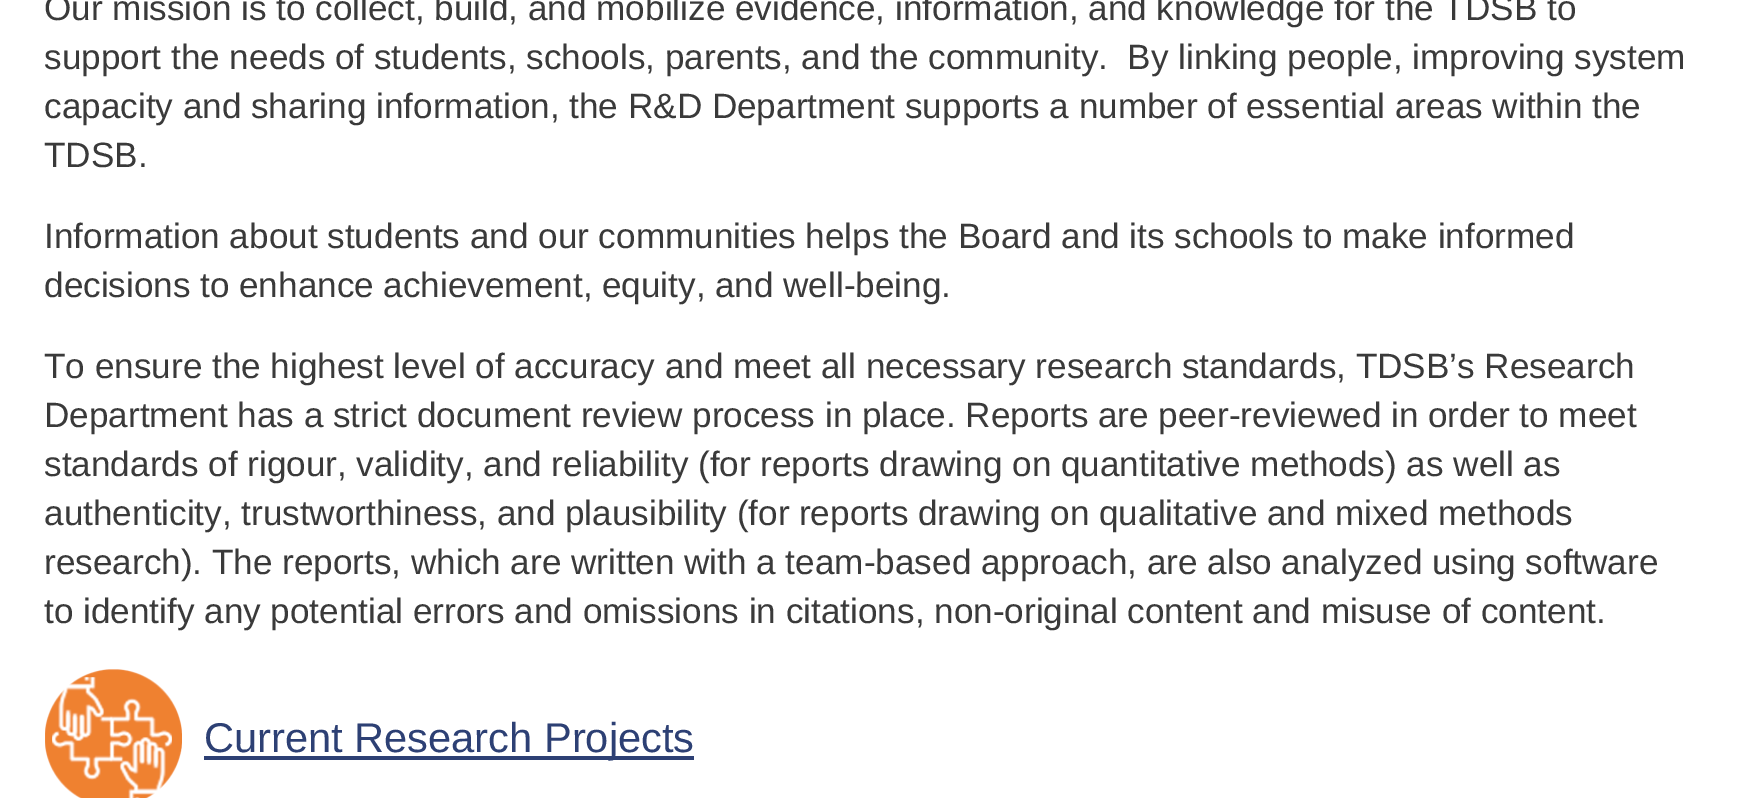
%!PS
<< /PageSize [1759 798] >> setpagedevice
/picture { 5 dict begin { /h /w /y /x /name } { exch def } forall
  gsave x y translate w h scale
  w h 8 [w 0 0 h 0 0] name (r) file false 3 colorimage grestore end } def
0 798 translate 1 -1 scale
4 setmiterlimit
1 setgray
0 0 1759 798 rectfill
/LiberationSans-Regular [35.15 0 0 -35.15 0 0] selectfont
0.227 setgray
44 20 moveto -0.1 0 32 (Our mission is to collect, build, and mobilize evidence, information, and knowledge for the TDSB to) widthshow
44 69 moveto -0.1 0 32 (support the needs of students, schools, parents, and the community.  By linking people, improving system) widthshow
44 118 moveto -0.1 0 32 (capacity and sharing information, the R&D Department supports a number of essential areas within the) widthshow
44 167 moveto (TDSB.) show
44 248 moveto -0.1 0 32 (Information about students and our communities helps the Board and its schools to make informed) widthshow
44 297 moveto -0.25 0 32 (decisions to enhance achievement, equity, and well-being.) widthshow
44 378 moveto -0.1 0 32 (To ensure the highest level of accuracy and meet all necessary research standards, TDSB’s Research) widthshow
44 427 moveto -0.1 0 32 (Department has a strict document review process in place. Reports are peer-reviewed in order to meet) widthshow
44 476 moveto -0.1 0 32 (standards of rigour, validity, and reliability \(for reports drawing on quantitative methods\) as well as) widthshow
44 525 moveto -0.25 0 32 (authenticity, trustworthiness, and plausibility \(for reports drawing on qualitative and mixed methods) widthshow
44 574 moveto -0.1 0 32 (research\). The reports, which are written with a team-based approach, are also analyzed using software) widthshow
44 623 moveto -0.1 0 32 (to identify any potential errors and omissions in citations, non-original content and misuse of content.) widthshow
(img1.rgb) 45 669 137 129 picture
0.176 0.251 0.455 setrgbcolor
204 756 490 4 rectfill
/LiberationSans-Regular [41.6 0 0 -41.6 0 0] selectfont
204 752 moveto (Current Research Projects) show
showpage
